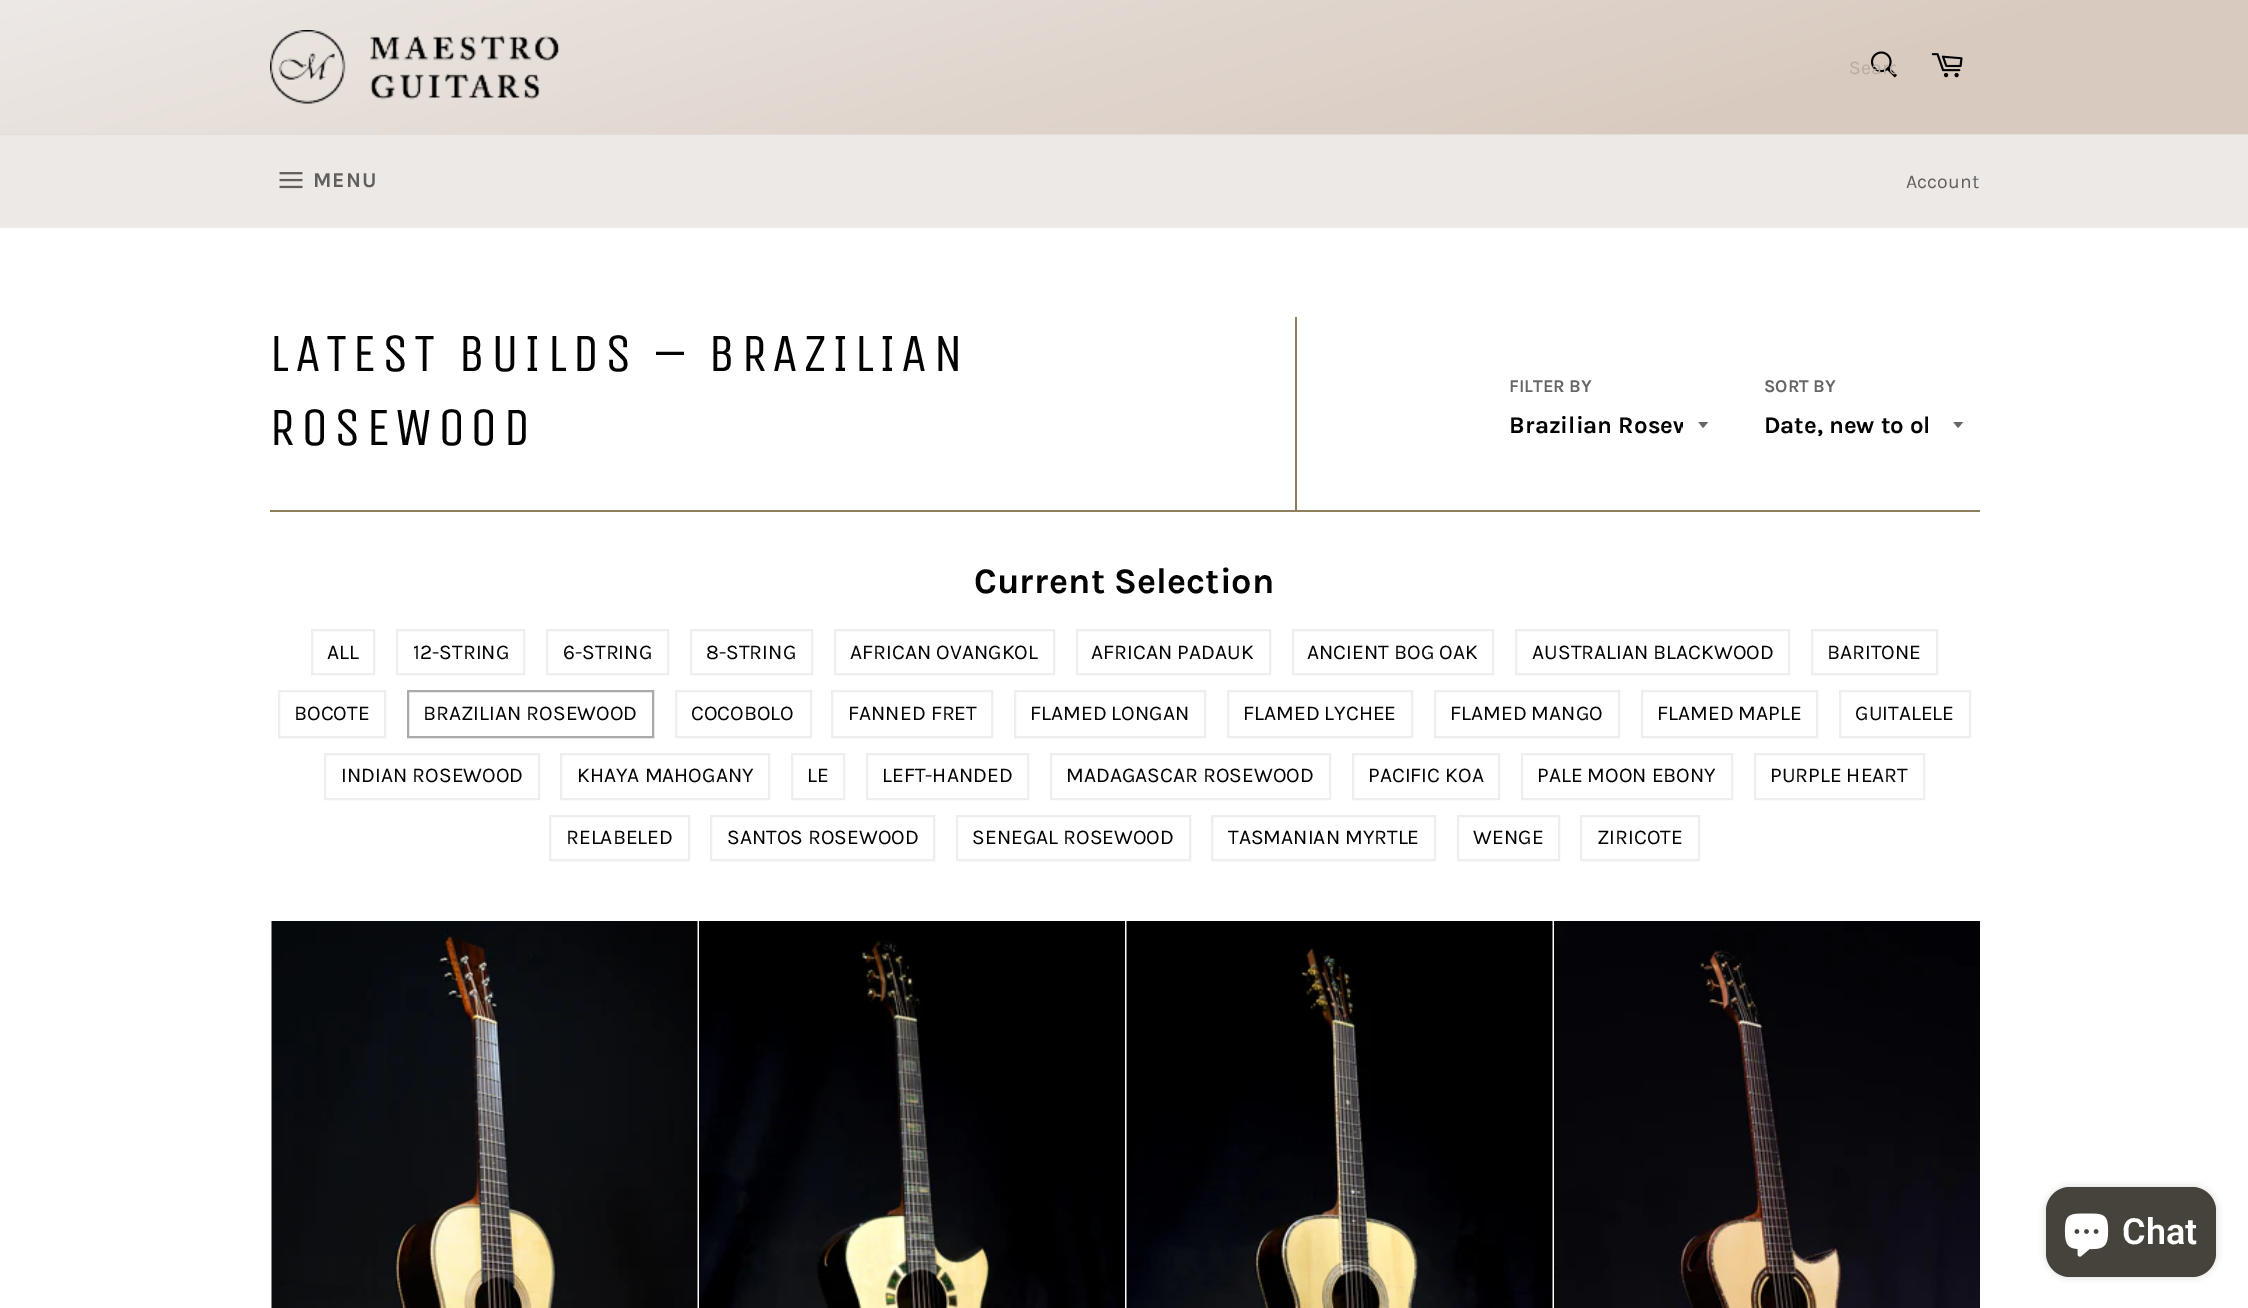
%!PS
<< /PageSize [2248 1308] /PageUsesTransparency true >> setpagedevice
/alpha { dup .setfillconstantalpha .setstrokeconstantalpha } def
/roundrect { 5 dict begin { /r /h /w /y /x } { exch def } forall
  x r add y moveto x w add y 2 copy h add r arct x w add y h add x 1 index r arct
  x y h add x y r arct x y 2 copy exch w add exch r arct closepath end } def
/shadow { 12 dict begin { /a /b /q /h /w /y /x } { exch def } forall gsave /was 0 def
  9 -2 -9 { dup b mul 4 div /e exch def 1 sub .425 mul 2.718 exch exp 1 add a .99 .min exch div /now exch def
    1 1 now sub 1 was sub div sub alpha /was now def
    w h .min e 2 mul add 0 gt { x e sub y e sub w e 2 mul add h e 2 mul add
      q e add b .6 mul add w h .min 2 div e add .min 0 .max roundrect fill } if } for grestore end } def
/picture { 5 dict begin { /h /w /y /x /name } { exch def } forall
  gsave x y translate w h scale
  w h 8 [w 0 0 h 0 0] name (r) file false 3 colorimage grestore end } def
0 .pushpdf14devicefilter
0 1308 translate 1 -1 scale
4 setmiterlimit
1 setgray
0 0 2248 1308 rectfill
gsave newpath 0 0 moveto 2248 0 lineto 2248 134 lineto 0 134 lineto closepath clip newpath
<< /ShadingType 2 /ColorSpace /DeviceRGB /Coords [1252 531 996 -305] /Extend [true true] /Function << /FunctionType 3 /Domain [0 1] /Functions [<< /FunctionType 2 /Domain [0 1] /C0 [0.851 0.792 0.749] /C1 [0.851 0.792 0.749] /N 1 >> << /FunctionType 2 /Domain [0 1] /C0 [0.851 0.792 0.749] /C1 [0.929 0.914 0.902] /N 1 >>] /Bounds [0.29] /Encode [0 1 0 1] >> >> shfill grestore
(img1.rgb) 270 30 290 74 picture
(img2.rgb) 1870 51 27 27 picture
gsave
1848 56 48 22 rectclip
/Karla-Regular [19.5 0 0 -19.5 0 0] selectfont
0.722 0.675 0.635 setrgbcolor
1849 74 moveto (Searc) show
grestore
(img3.rgb) 1931 53 32 25 picture
0.886 0.863 0.843 setrgbcolor
0 134 2248 1 rectfill
0.929 0.914 0.902 setrgbcolor
0 135 2248 93 rectfill
(img4.rgb) 279 172 24 17 picture
/Karla-Bold [21 0 0 -21 0 0] selectfont
0.38 0.373 0.369 setrgbcolor
313 187 moveto 1 0 (MENU) ashow
/Karla-Regular [19.5 0 0 -19.5 0 0] selectfont
1906 188 moveto (Account) show
0.561 0.502 0.357 setrgbcolor
270 510 1710 2 rectfill
1295 317 2 193 rectfill
/UnicaOne-Regular [54 0 0 -54 0 0] selectfont
0.012 setgray
269 371 moveto 5.4 0 (LATEST BUILDS – BRAZILIAN) ashow
269 445 moveto 5.4 0 (ROSEWOOD) ashow
/Karla-Bold [18 0 0 -18 0 0] selectfont
0.4 setgray
1509 392 moveto (FILTER BY) show
gsave
1698 422 12 7 rectclip
newpath 1698 421.5 moveto 1703 428 lineto 1708.5 421.5 lineto closepath fill
grestore
gsave
1509 410 174 33 rectclip
/Karla-Bold [24 0 0 -24 0 0] selectfont
0.012 setgray
1509 433 moveto (Brazilian Rosew) show
grestore
1764 392 moveto (SORT BY) show
gsave
1953 422 12 7 rectclip
newpath 1953 421.5 moveto 1958 428 lineto 1963.5 421.5 lineto closepath fill
grestore
/Karla-Bold [24 0 0 -24 0 0] selectfont
0.012 setgray
1764 433 moveto (Date, new to ol) show
/Karla-Bold [36 0 0 -36 0 0] selectfont
974 593 moveto (Current Selection) show
0.933 setgray
2 setlinewidth
312 630 62 44 rectstroke
/Karla-Regular [21 0 0 -21 0 0] selectfont
0.012 setgray
327 659 moveto (ALL) show
0.933 setgray
397 630 127 44 rectstroke
0.012 setgray
413 659 moveto (12-STRING) show
0.933 setgray
547 630 121 44 rectstroke
0.012 setgray
563 659 moveto (6-STRING) show
0.933 setgray
691 630 121 44 rectstroke
0.012 setgray
706 659 moveto (8-STRING) show
0.933 setgray
835 630 219 44 rectstroke
0.012 setgray
850 659 moveto (AFRICAN OVANGKOL) show
0.933 setgray
1077 630 193 44 rectstroke
0.012 setgray
1091 659 moveto (AFRICAN PADAUK) show
0.933 setgray
1293 630 200 44 rectstroke
0.012 setgray
1307 659 moveto (ANCIENT BOG OAK) show
0.933 setgray
1516 630 273 44 rectstroke
0.012 setgray
1532 659 moveto (AUSTRALIAN BLACKWOOD) show
0.933 setgray
1812 630 125 44 rectstroke
0.012 setgray
1827 659 moveto (BARITONE) show
0.933 setgray
279 691 106 46 rectstroke
0.012 setgray
294 720 moveto (BOCOTE) show
0.667 setgray
408 691 245 46 rectstroke
0.012 setgray
423 720 moveto (BRAZILIAN ROSEWOOD) show
0.933 setgray
676 691 135 46 rectstroke
0.012 setgray
691 720 moveto (COCOBOLO) show
0.933 setgray
832 691 160 46 rectstroke
0.012 setgray
848 720 moveto (FANNED FRET) show
0.933 setgray
1015 691 190 46 rectstroke
0.012 setgray
1030 720 moveto (FLAMED LONGAN) show
0.933 setgray
1228 691 184 46 rectstroke
0.012 setgray
1243 720 moveto (FLAMED LYCHEE) show
0.933 setgray
1435 691 184 46 rectstroke
0.012 setgray
1450 720 moveto (FLAMED MANGO) show
0.933 setgray
1642 691 175 46 rectstroke
0.012 setgray
1657 720 moveto (FLAMED MAPLE) show
0.933 setgray
1840 691 130 46 rectstroke
0.012 setgray
1855 720 moveto (GUITALELE) show
0.933 setgray
325 754 214 45 rectstroke
0.012 setgray
341 782 moveto (INDIAN ROSEWOOD) show
0.933 setgray
561 754 208 45 rectstroke
0.012 setgray
577 782 moveto (KHAYA MAHOGANY) show
0.933 setgray
792 754 52 45 rectstroke
0.012 setgray
807 782 moveto (LE) show
0.933 setgray
867 754 161 45 rectstroke
0.012 setgray
882 782 moveto (LEFT-HANDED) show
0.933 setgray
1051 754 279 45 rectstroke
0.012 setgray
1066 782 moveto (MADAGASCAR ROSEWOOD) show
0.933 setgray
1353 754 146 45 rectstroke
0.012 setgray
1368 782 moveto (PACIFIC KOA) show
0.933 setgray
1522 754 210 45 rectstroke
0.012 setgray
1537 782 moveto (PALE MOON EBONY) show
0.933 setgray
1755 754 169 45 rectstroke
0.012 setgray
1770 782 moveto (PURPLE HEART) show
0.933 setgray
550 816 139 44 rectstroke
0.012 setgray
566 844 moveto (RELABELED) show
0.933 setgray
711 816 223 44 rectstroke
0.012 setgray
727 844 moveto (SANTOS ROSEWOOD) show
0.933 setgray
957 816 233 44 rectstroke
0.012 setgray
972 844 moveto (SENEGAL ROSEWOOD) show
0.933 setgray
1212 816 223 44 rectstroke
0.012 setgray
1228 844 moveto (TASMANIAN MYRTLE) show
0.933 setgray
1458 816 101 44 rectstroke
0.012 setgray
1473 844 moveto (WENGE) show
0.933 setgray
1581 816 118 44 rectstroke
0.012 setgray
1597 844 moveto (ZIRICOTE) show
0.98 0.969 0.957 setrgbcolor
697 921 1 387 rectfill
(img5.rgb) 271 921 427 387 picture
(img6.rgb) 699 921 426 387 picture
1552 921 1 387 rectfill
(img7.rgb) 1126 921 427 387 picture
(img8.rgb) 1554 921 426 387 picture
0 setgray
2046 1187 170 90 24 4 0.15 shadow
0.275 0.259 0.235 setrgbcolor
2046 1187 170 90 24 roundrect fill
(img9.rgb) 2064 1213 45 44 picture
/Roboto-SemiBold [36 0 0 -36 0 0] selectfont
1 setgray
2122 1244 moveto (Chat) show
.poppdf14devicefilter showpage
